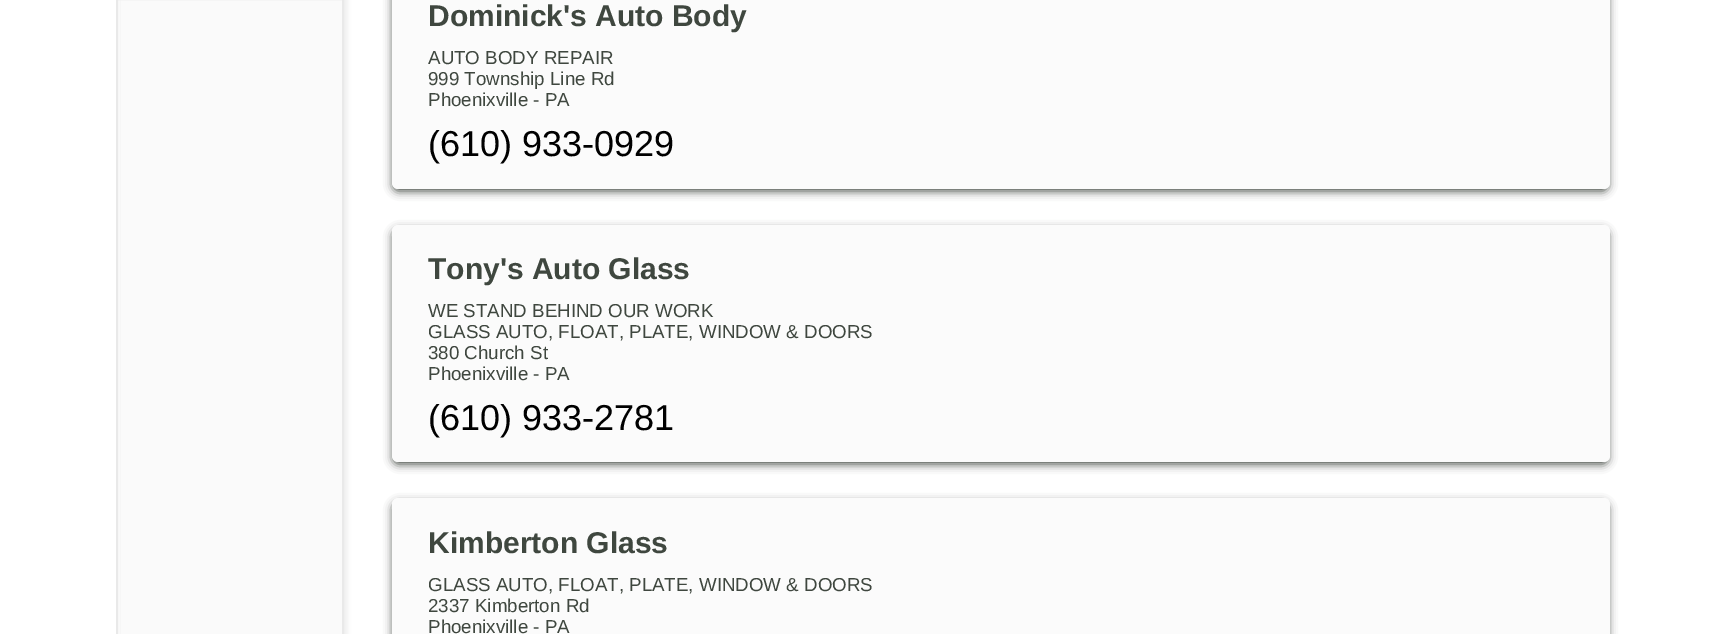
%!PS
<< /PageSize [1724 634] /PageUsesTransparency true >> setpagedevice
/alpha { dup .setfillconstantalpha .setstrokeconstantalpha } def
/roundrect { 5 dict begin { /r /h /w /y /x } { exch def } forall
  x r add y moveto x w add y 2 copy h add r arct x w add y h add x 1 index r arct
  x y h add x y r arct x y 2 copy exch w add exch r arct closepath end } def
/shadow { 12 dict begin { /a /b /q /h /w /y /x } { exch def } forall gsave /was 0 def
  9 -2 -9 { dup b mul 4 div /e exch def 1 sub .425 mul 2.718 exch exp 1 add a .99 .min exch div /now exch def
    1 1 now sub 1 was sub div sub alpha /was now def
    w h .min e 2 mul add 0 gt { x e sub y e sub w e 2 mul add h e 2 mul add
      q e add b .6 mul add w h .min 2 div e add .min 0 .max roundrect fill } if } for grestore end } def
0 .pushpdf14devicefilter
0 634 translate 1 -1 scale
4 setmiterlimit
1 setgray
0 0 1724 634 rectfill
0 setgray
120 -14 228 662 8 2 0.05 shadow
0.98 setgray
121 0 221 634 rectfill
0.914 setgray
2 setlinewidth
117 -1 226 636 rectstroke
0.247 0.278 0.247 setrgbcolor
393 -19 1215 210 5 4.5 1 shadow
0.984 setgray
392 -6 1218 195 6 roundrect fill
/LiberationSans-Bold [30 0 0 -30 0 0] selectfont
0.247 0.278 0.247 setrgbcolor
428 26 moveto (Dominick's Auto Body) show
/LiberationSans-Regular [18.75 0 0 -18.75 0 0] selectfont
428 64 moveto (AUTO BODY REPAIR) show
428 85 moveto (999 Township Line Rd) show
428 106 moveto (Phoenixville - PA) show
/LiberationSans-Regular [36 0 0 -36 0 0] selectfont
0 setgray
428 156 moveto (\(610\) 933-0929) show
0.247 0.278 0.247 setrgbcolor
393 230 1215 234 5 4.5 1 shadow
0.984 setgray
392 225 1218 237 6 roundrect fill
/LiberationSans-Bold [30 0 0 -30 0 0] selectfont
0.247 0.278 0.247 setrgbcolor
428 279 moveto (Tony's Auto Glass) show
/LiberationSans-Regular [18.75 0 0 -18.75 0 0] selectfont
428 317 moveto (WE STAND BEHIND OUR WORK) show
428 338 moveto (GLASS AUTO, FLOAT, PLATE, WINDOW & DOORS) show
428 359 moveto (380 Church St) show
428 380 moveto (Phoenixville - PA) show
/LiberationSans-Regular [36 0 0 -36 0 0] selectfont
0 setgray
428 430 moveto (\(610\) 933-2781) show
0.247 0.278 0.247 setrgbcolor
393 503 1215 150 5 4.5 1 shadow
0.984 setgray
392 498 1218 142 6 roundrect fill
/LiberationSans-Bold [30 0 0 -30 0 0] selectfont
0.247 0.278 0.247 setrgbcolor
428 553 moveto (Kimberton Glass) show
/LiberationSans-Regular [18.75 0 0 -18.75 0 0] selectfont
428 591 moveto (GLASS AUTO, FLOAT, PLATE, WINDOW & DOORS) show
428 612 moveto (2337 Kimberton Rd) show
428 633 moveto (Phoenixville - PA) show
.poppdf14devicefilter showpage
